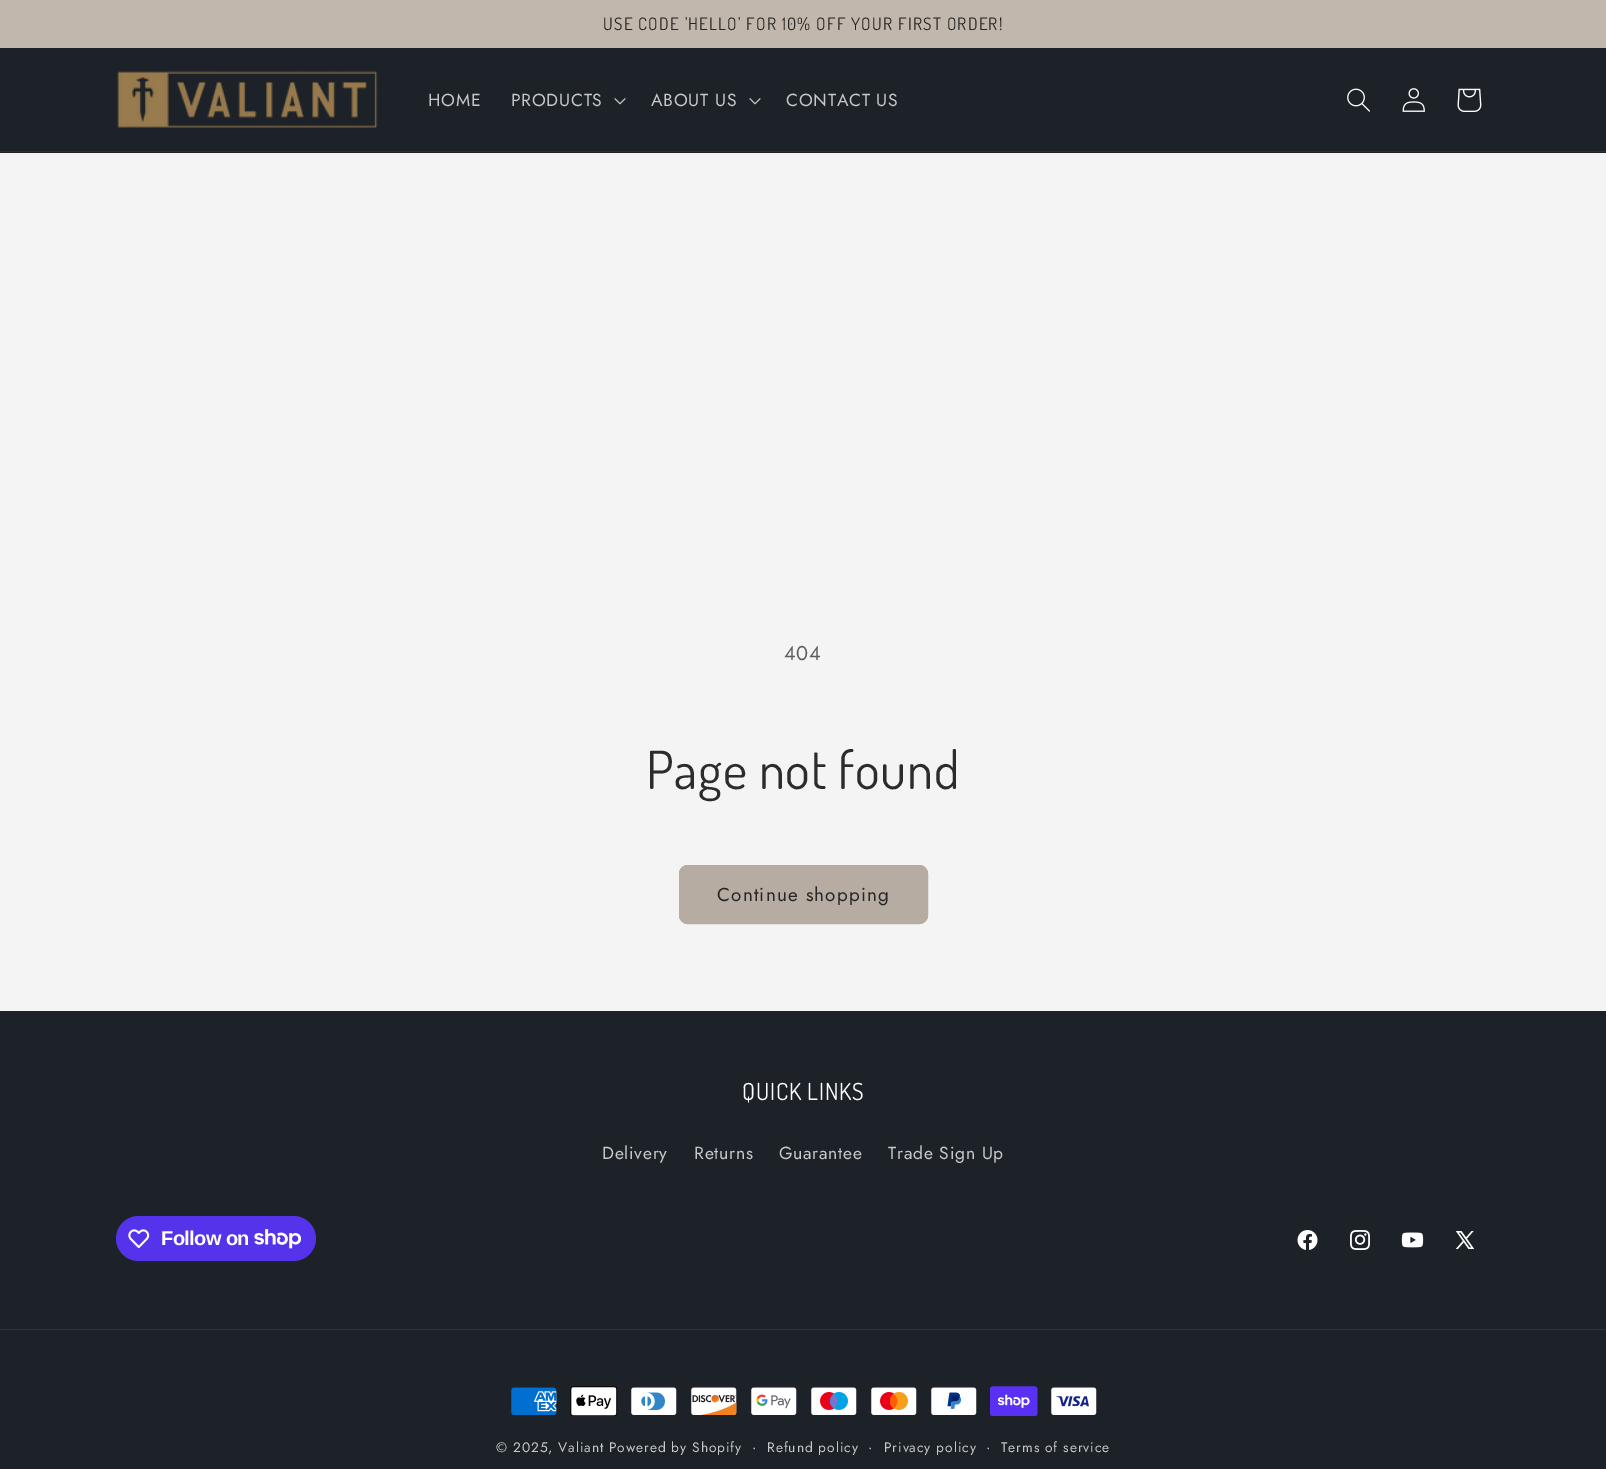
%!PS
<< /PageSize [1606 1469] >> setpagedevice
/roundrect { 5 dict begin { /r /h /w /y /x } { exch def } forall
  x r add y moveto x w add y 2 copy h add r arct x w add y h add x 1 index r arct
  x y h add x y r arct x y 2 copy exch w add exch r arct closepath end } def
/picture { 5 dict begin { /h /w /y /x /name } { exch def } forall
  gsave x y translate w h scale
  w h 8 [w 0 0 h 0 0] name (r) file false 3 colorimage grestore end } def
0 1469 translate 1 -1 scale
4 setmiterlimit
0.957 setgray
0 0 1606 1469 rectfill
0.761 0.718 0.675 setrgbcolor
0 0 1606 48 rectfill
/Dosis-Regular [17.1 0 0 -17.1 0 0] selectfont
0.149 setgray
603 30 moveto 1.25 0 (USE CODE 'HELLO' FOR 10% OFF YOUR FIRST ORDER!) ashow
0.11 0.133 0.157 setrgbcolor
0 48 1606 105 rectfill
0.18 0.204 0.224 setrgbcolor
0 151 1606 1 rectfill
(img1.rgb) 117 71 261 57 picture
/Jost-Regular [17.5 0 0 -17.5 0 0] selectfont
0.776 0.784 0.788 setrgbcolor
428 106 moveto 0.75 0 (HOME) ashow
511 106 moveto 0.75 0 (PRODUCTS) ashow
(img2.rgb) 614 98 12 7 picture
651 106 moveto 0.75 0 (ABOUT US) ashow
(img2.rgb) 749 98 12 7 picture
786 106 moveto 0.75 0 (CONTACT US) ashow
(img3.rgb) 1347 88 23 24 picture
(img4.rgb) 1402 88 23 24 picture
(img5.rgb) 1457 88 25 24 picture
/Jost-Regular [20 0 0 -20 0 0] selectfont
0.365 0.369 0.373 setrgbcolor
784 660 moveto 0.75 0 (404) ashow
/Dosis-Regular [52.5 0 0 -52.5 0 0] selectfont
0.169 0.173 0.176 setrgbcolor
646 789 moveto 0.75 0 (Page not found) ashow
0.718 0.675 0.635 setrgbcolor
679 865 249 59 9 roundrect fill
679.5 865.5 248 58 8.5 roundrect stroke
/Jost-Regular [18.75 0 0 -18.75 0 0] selectfont
0.149 setgray
717 901 moveto 1.25 0 (Continue shopping) ashow
0.11 0.133 0.157 setrgbcolor
0 1011 1606 458 rectfill
/Dosis-Regular [23.5 0 0 -23.5 0 0] selectfont
1 setgray
742 1100 moveto 0.75 0 (QUICK LINKS) ashow
/Jost-Regular [17.5 0 0 -17.5 0 0] selectfont
0.776 0.784 0.788 setrgbcolor
602 1159 moveto 0.75 0 (Delivery) ashow
694 1159 moveto 0.75 0 (Returns) ashow
779 1159 moveto 0.75 0 (Guarantee) ashow
888 1159 moveto 0.75 0 (Trade Sign Up) ashow
0.329 0.2 0.922 setrgbcolor
116 1216 200 45 22.5 roundrect fill
(img6.rgb) 128 1229 22 20 picture
/LiberationSans-Bold [20 0 0 -20 0 0] selectfont
1 setgray
161 1245 moveto -0.6 0 (Follow on) ashow
(img7.rgb) 254 1229 47 20 picture
(img8.rgb) 1297 1230 21 20 picture
(img9.rgb) 1350 1230 20 20 picture
(img10.rgb) 1401 1232 23 16 picture
(img11.rgb) 1455 1231 20 18 picture
0.18 0.204 0.224 setrgbcolor
0 1329 1606 1 rectfill
(img12.rgb) 511 1387 46 28 picture
(img13.rgb) 570 1386 48 30 picture
(img14.rgb) 631 1387 46 28 picture
(img15.rgb) 691 1387 46 28 picture
(img16.rgb) 751 1387 46 28 picture
(img17.rgb) 811 1387 46 28 picture
(img18.rgb) 871 1387 46 28 picture
(img19.rgb) 931 1387 46 28 picture
(img20.rgb) 990 1386 48 30 picture
(img21.rgb) 1051 1387 46 28 picture
/Jost-Regular [13.75 0 0 -13.75 0 0] selectfont
0.776 0.784 0.788 setrgbcolor
496 1452 moveto 0.9 0 (© 2025, Valiant) ashow
609 1452 moveto 0.9 0 (Powered by Shopify) ashow
/Jost-Regular [15 0 0 -15 0 0] selectfont
752 1452 moveto 0.9 0 (·) ashow
/Jost-Regular [13.75 0 0 -13.75 0 0] selectfont
767 1452 moveto 0.9 0 (Refund policy) ashow
/Jost-Regular [15 0 0 -15 0 0] selectfont
868 1452 moveto 0.9 0 (·) ashow
/Jost-Regular [13.75 0 0 -13.75 0 0] selectfont
884 1452 moveto 0.9 0 (Privacy policy) ashow
/Jost-Regular [15 0 0 -15 0 0] selectfont
986 1452 moveto 0.9 0 (·) ashow
/Jost-Regular [13.75 0 0 -13.75 0 0] selectfont
1001 1452 moveto 0.9 0 (Terms of service) ashow
showpage
